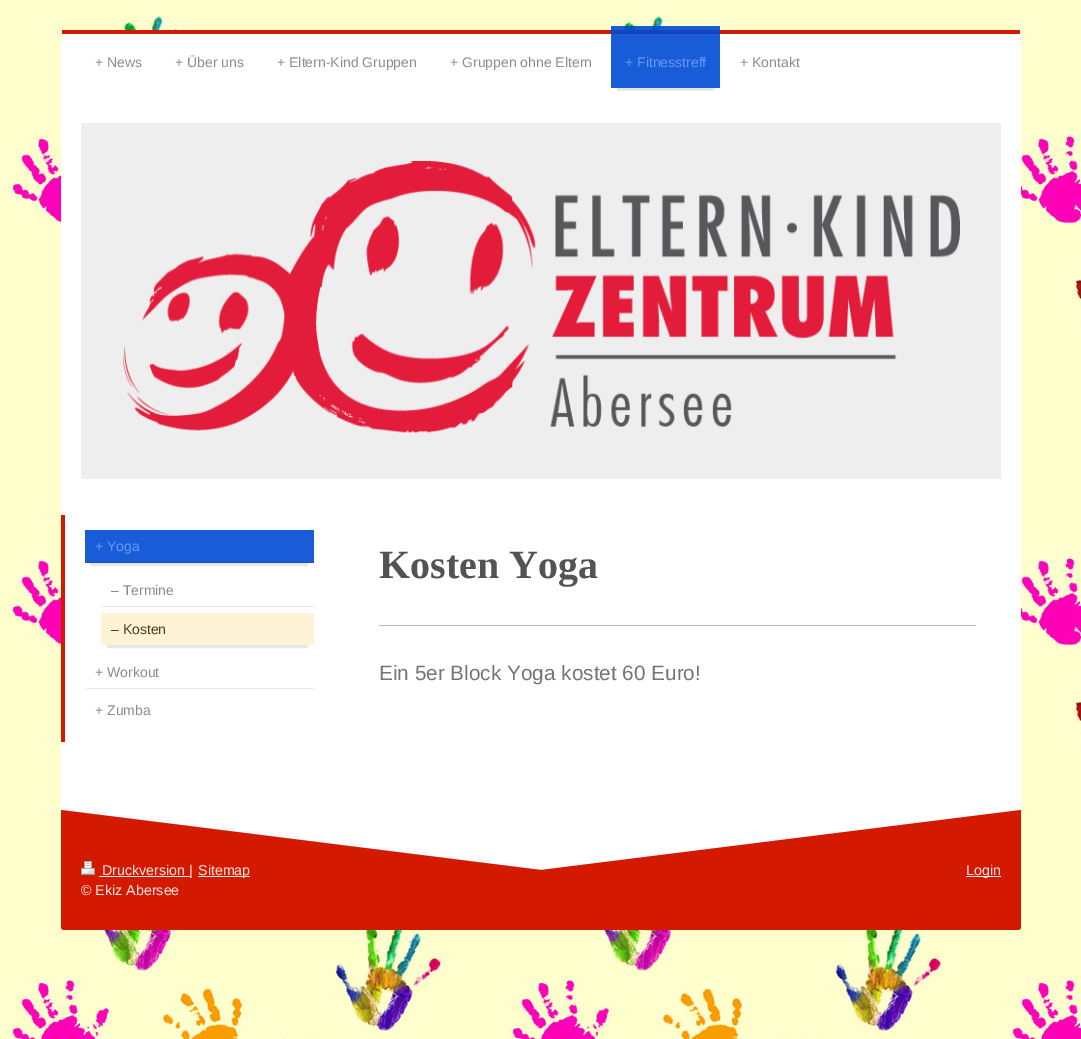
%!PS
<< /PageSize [1081 1039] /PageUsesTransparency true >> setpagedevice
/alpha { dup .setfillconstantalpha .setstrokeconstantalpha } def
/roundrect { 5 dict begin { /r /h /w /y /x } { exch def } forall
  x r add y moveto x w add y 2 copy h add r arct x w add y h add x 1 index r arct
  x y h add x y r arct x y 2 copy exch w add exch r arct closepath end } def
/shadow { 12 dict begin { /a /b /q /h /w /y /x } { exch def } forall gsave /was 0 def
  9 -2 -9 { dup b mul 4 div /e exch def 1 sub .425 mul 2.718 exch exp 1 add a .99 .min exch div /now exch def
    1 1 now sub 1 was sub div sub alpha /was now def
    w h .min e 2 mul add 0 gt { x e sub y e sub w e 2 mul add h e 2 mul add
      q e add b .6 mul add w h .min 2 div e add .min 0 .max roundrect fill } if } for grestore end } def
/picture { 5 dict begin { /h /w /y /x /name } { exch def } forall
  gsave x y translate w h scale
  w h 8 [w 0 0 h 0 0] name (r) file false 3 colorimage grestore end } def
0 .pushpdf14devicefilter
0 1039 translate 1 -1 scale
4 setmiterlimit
1 setgray
0 0 1081 1039 rectfill
(img1.rgb) 0 0 1081 1039 picture
newpath 63 30 moveto 1019 30 lineto 1020 30 1021 31 1021 32 curveto 1021 926 lineto 1021 928 1019 930 1017 930 curveto 65 930 lineto 63 930 61 928 61 926 curveto 61 32 lineto 61 31 62 30 63 30 curveto closepath fill
0.827 0.098 0 setrgbcolor
62 30 958 4 rectfill
/LiberationSans-Regular [14 0 0 -14 0 0] selectfont
0.549 setgray
95 67 moveto (+ News) show
175 67 moveto (+ Über uns) show
277 67 moveto (+ Eltern-Kind Gruppen) show
450 67 moveto (+ Gruppen ohne Eltern) show
gsave
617 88 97 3 rectclip
0 setgray
617 41 97 50 0 0.5 0.1 shadow
grestore
0.9 alpha
0 0.29 0.827 setrgbcolor
611 26 109 62 1 roundrect fill
1 alpha
0.384 0.596 0.984 setrgbcolor
625 67 moveto (+ Fitnesstreff) show
0.549 setgray
740 67 moveto (+ Kontakt) show
0.933 setgray
81 123 920 356 2 roundrect fill
(img2.rgb) 123 161 837 272 picture
0.827 0.098 0 setrgbcolor
61 515 4 227 rectfill
0 setgray
91 545 217 21 0 0.5 0.1 shadow
0.102 0.361 0.843 setrgbcolor
85 530 229 33 1 roundrect fill
0.1 alpha
0 setgray
86 562 228 1 rectfill
1 alpha
0.384 0.596 0.984 setrgbcolor
95 551 moveto (+ Yoga) show
0.902 setgray
102 606 212 1 rectfill
0.549 setgray
111 595 moveto (– Termine) show
0 setgray
107 628 201 20 0 0.5 0.1 shadow
1 0.953 0.843 setrgbcolor
101 613 213 32 1 roundrect fill
0.302 0.239 0.082 setrgbcolor
111 634 moveto (– Kosten) show
0.902 setgray
86 688 228 1 rectfill
0.549 setgray
95 677 moveto (+ Workout) show
95 715 moveto (+ Zumba) show
/LiberationSerif-Bold [40 0 0 -40 0 0] selectfont
0.325 setgray
379 578 moveto (Kosten Yoga) show
0.729 setgray
379 625 597 1 rectfill
/LiberationSans-Regular [20.75 0 0 -20.75 0 0] selectfont
0.459 setgray
379 680 moveto (Ein 5er Block Yoga kostet 60 Euro!) show
0.827 0.098 0 setrgbcolor
newpath 61 870 moveto 1021 870 lineto 1021 927 lineto 1021 928.5 1019.5 930 1018 930 curveto 64 930 lineto 62.5 930 61 928.5 61 927 curveto closepath fill
newpath 541 870 moveto 61 870 lineto 61 810 lineto closepath fill
newpath 1021 870 moveto 541 870 lineto 1021 810 lineto closepath fill
(img3.rgb) 81 861 14 14 picture
0.984 0.91 0.902 setrgbcolor
99 876 91 1 rectfill
/LiberationSans-Regular [14.25 0 0 -14.25 0 0] selectfont
102 875 moveto (Druckversion |) show
198 876 52 1 rectfill
198 875 moveto (Sitemap) show
gsave
81 860 920 40 rectclip
81 895 moveto (© Ekiz Abersee) show
grestore
966 876 35 1 rectfill
966 875 moveto (Login) show
.poppdf14devicefilter showpage
